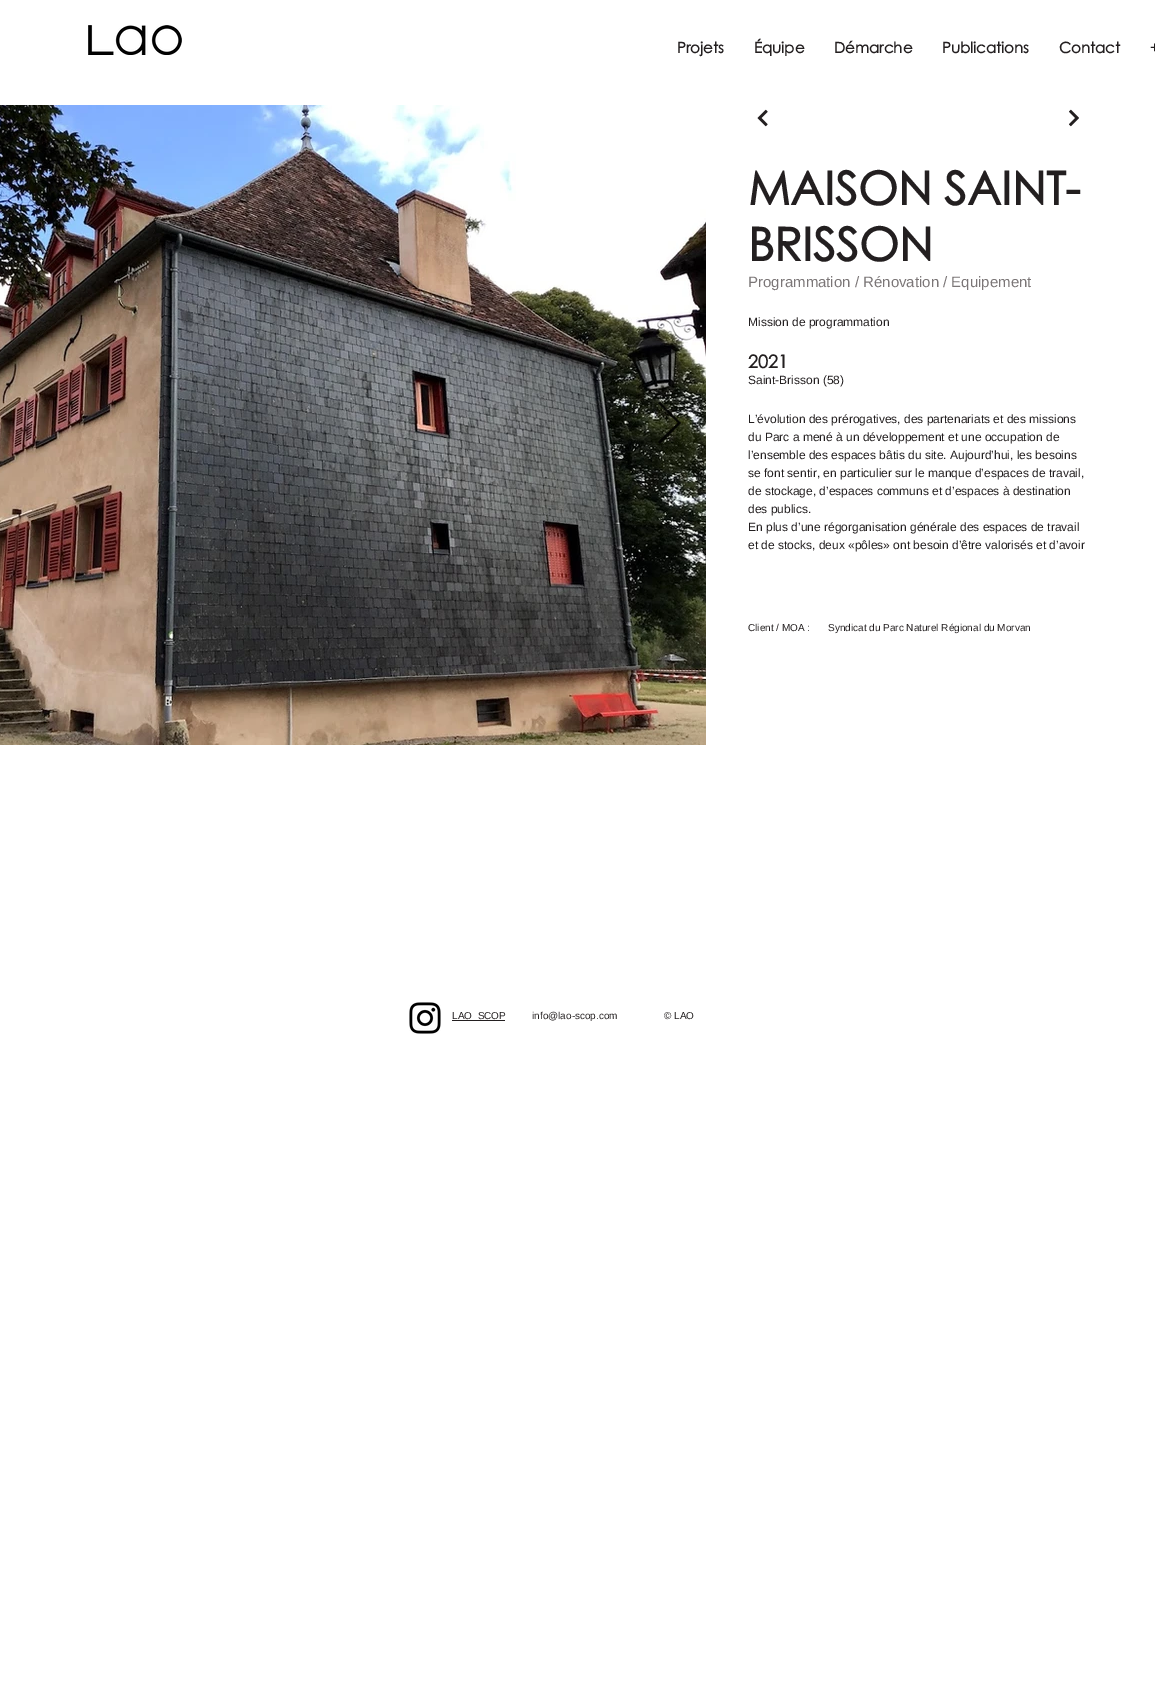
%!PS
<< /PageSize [1155 1695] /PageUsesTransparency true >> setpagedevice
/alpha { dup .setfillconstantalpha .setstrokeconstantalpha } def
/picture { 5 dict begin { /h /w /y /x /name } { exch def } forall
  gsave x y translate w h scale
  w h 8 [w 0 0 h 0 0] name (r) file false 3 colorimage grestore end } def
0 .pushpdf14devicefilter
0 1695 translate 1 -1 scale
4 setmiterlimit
1 setgray
0 0 1155 1695 rectfill
(img1.rgb) 88 25 94 30 picture
/CenturyGothic-Bold [15 0 0 -15 0 0] selectfont
0.137 0.122 0.125 setrgbcolor
677 53 moveto (Projets) show
754 53 moveto (Équipe) show
834 53 moveto (Démarche) show
942 53 moveto (Publications) show
1059 53 moveto (Contact) show
1150 53 moveto (+) show
(img2.rgb) 0 105 706 640 picture
0.9 alpha
0 setgray
newpath 658 403 moveto 660 402 lineto 681 423 lineto 660 444 lineto 658 442 lineto 678 423 lineto closepath fill
1 alpha
(img3.rgb) 757 109 11 18 picture
(img4.rgb) 1069 109 10 18 picture
/CenturyGothic-Bold [46 0 0 -46 0 0] selectfont
0.137 0.122 0.125 setrgbcolor
748 205 moveto (MAISON SAINT-) show
748 261 moveto (BRISSON) show
/LiberationSans-Regular [15 0 0 -15 0 0] selectfont
0.482 0.463 0.467 setrgbcolor
748 287 moveto (Programmation / Rénovation / Equipement) show
/LiberationSans-Regular [12 0 0 -12 0 0] selectfont
0.137 0.122 0.125 setrgbcolor
748 326 moveto (Mission de programmation) show
/CenturyGothic-Bold [18 0 0 -18 0 0] selectfont
748 368 moveto (2021) show
/LiberationSans-Regular [12 0 0 -12 0 0] selectfont
748 384 moveto (Saint-Brisson \(58\)) show
748 423 moveto (L’évolution des prérogatives, des partenariats et des missions) show
748 441 moveto (du Parc a mené à un développement et une occupation de) show
748 459 moveto (l’ensemble des espaces bâtis du site. Aujourd’hui, les besoins) show
748 477 moveto (se font sentir, en particulier sur le manque d’espaces de travail,) show
748 495 moveto (de stockage, d’espaces communs et d’espaces à destination) show
748 513 moveto (des publics.) show
748 531 moveto (En plus d’une régorganisation générale des espaces de travail) show
748 549 moveto (et de stocks, deux «pôles» ont besoin d’être valorisés et d’avoir) show
/LiberationSans-Regular [10 0 0 -10 0 0] selectfont
748 631 moveto (Client / MOA :) show
828 631 moveto (Syndicat du Parc Naturel Régional du Morvan) show
(img5.rgb) 409 1002 32 32 picture
452 1020 53 1 rectfill
452 1019 moveto (LAO_SCOP) show
532 1019 moveto (info@lao-scop.com) show
664 1019 moveto (© LAO) show
.poppdf14devicefilter showpage
